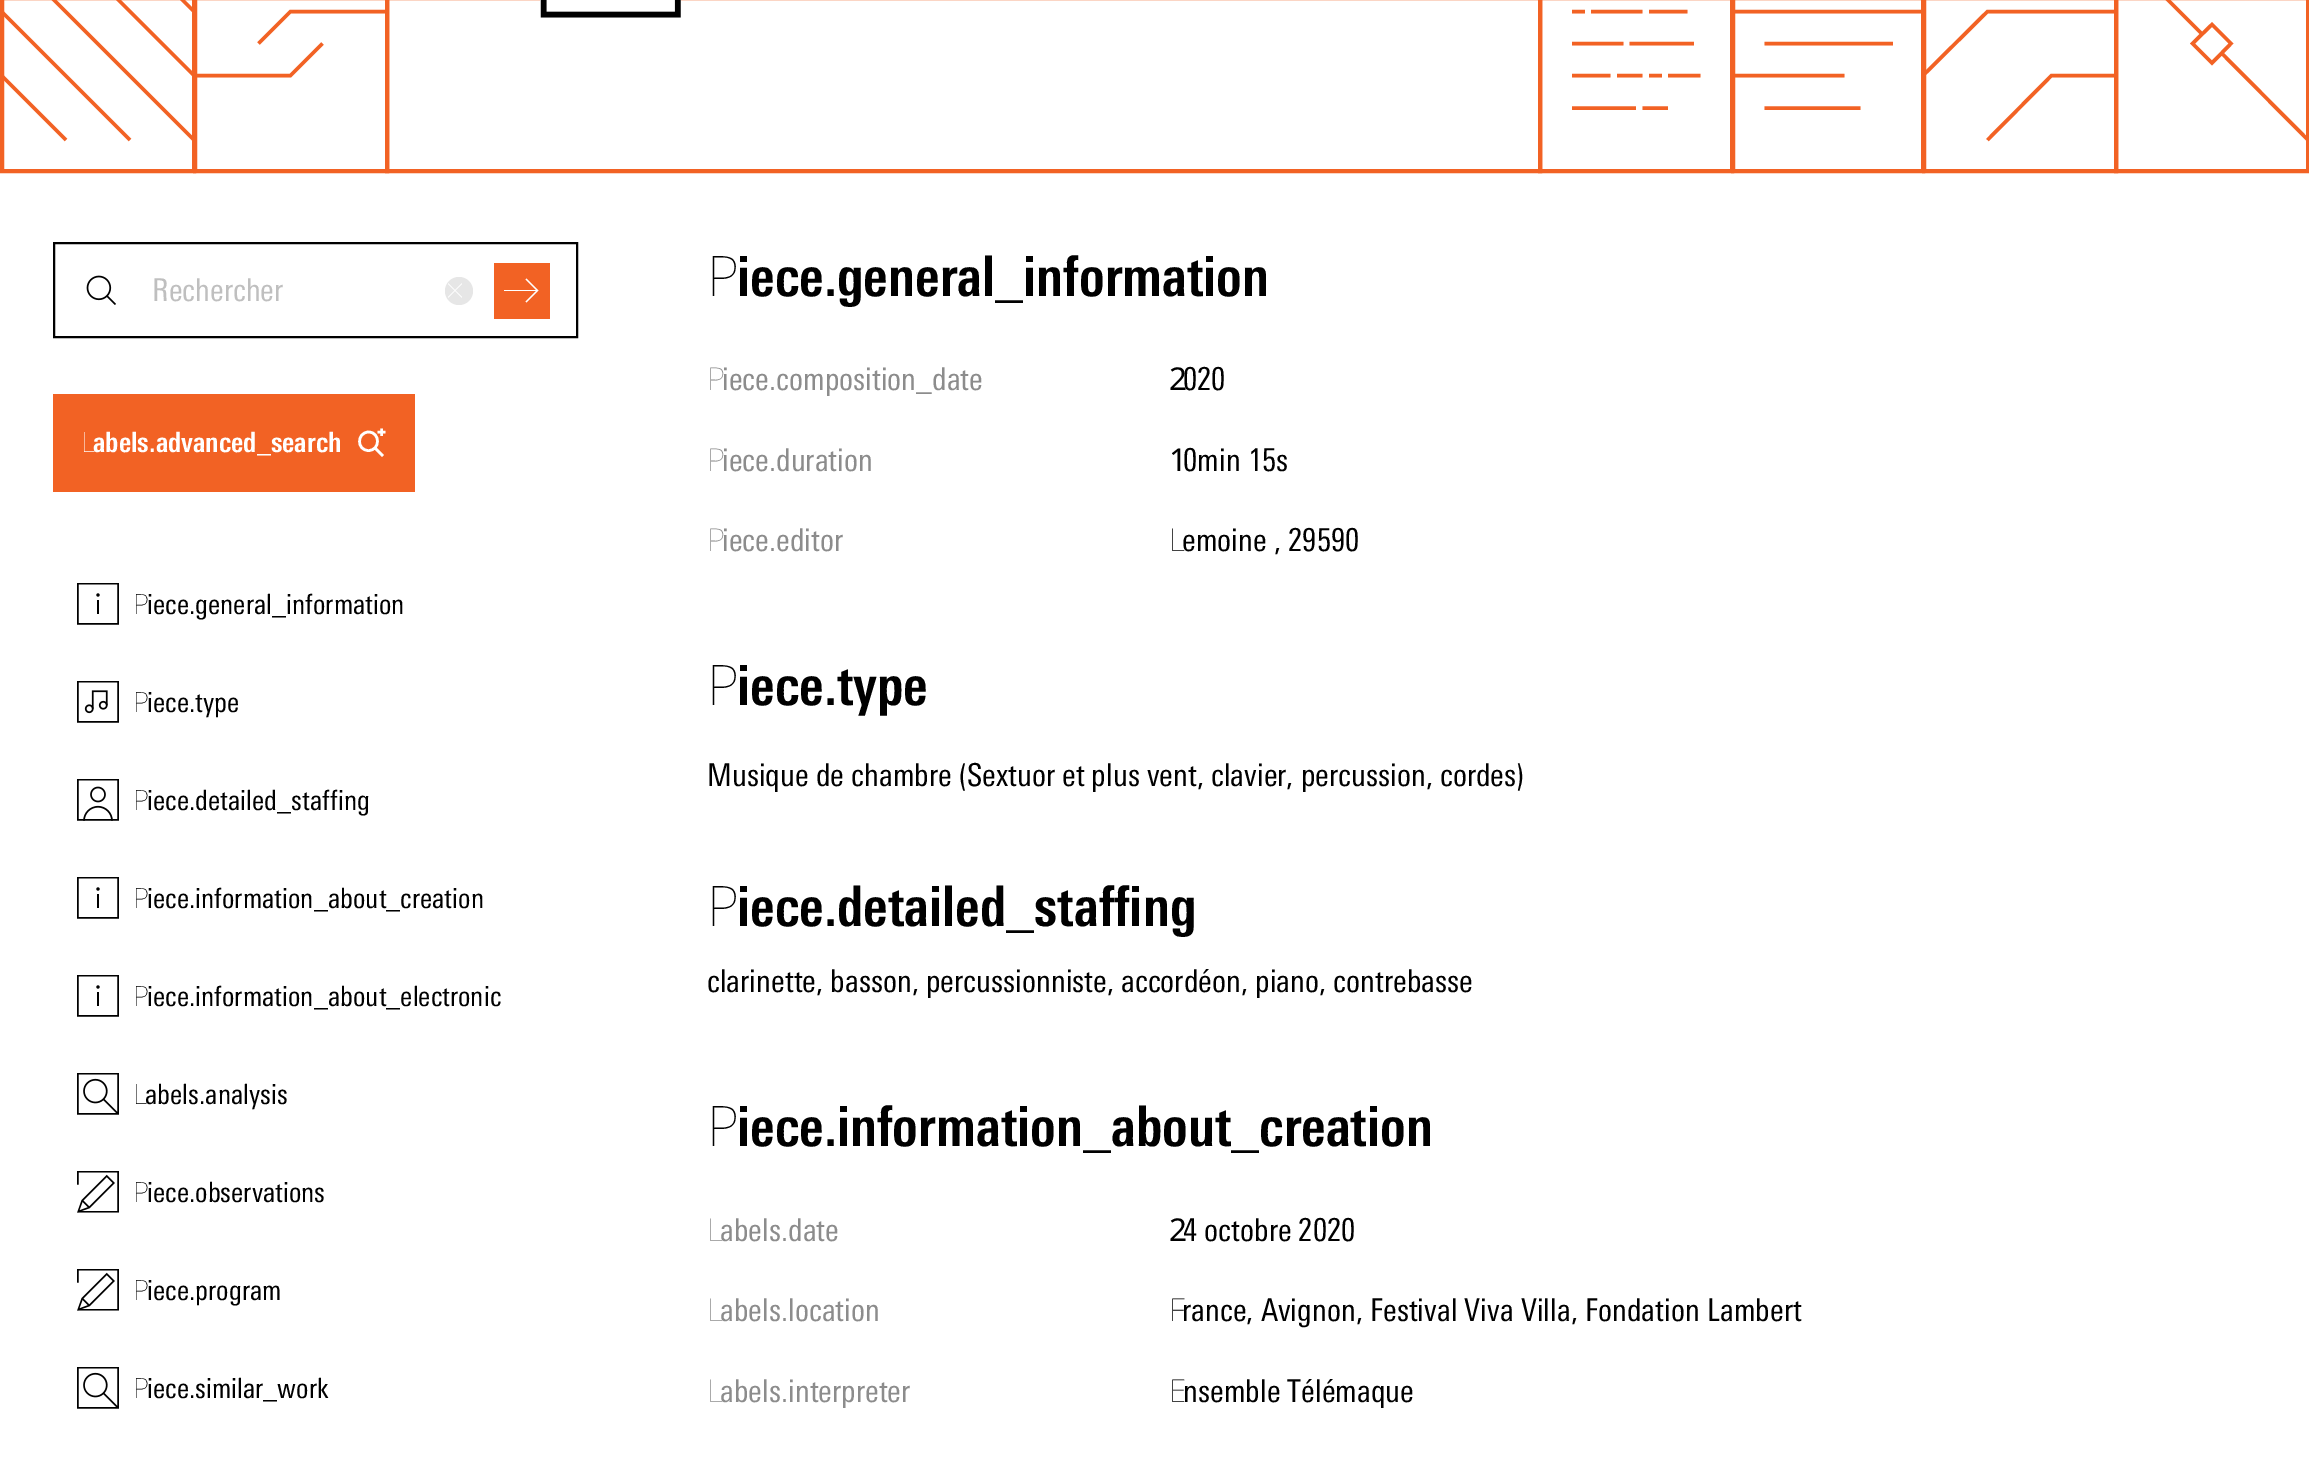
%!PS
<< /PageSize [2309 1463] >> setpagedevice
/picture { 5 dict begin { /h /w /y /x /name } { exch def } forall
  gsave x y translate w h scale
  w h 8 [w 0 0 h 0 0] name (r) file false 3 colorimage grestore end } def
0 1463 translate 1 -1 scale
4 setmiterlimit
1 setgray
0 0 2309 1463 rectfill
0.949 0.384 0.141 setrgbcolor
4 setlinewidth
2 -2 192 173 rectstroke
195 -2 192 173 rectstroke
3.5 setlinewidth
newpath 194 11.5 moveto 130 -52.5 lineto 194 75.5 moveto 66 -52.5 lineto 194 140 moveto 1.5 -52.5 lineto 130 140 moveto 1.5 11.5 lineto 66 140 moveto 1.5 75.5 lineto stroke
4 setlinewidth
1540 -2 192 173 rectstroke
387 -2 1153 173 rectstroke
3.5 setlinewidth
newpath 258.5 43.5 moveto 290.5 11.5 lineto 386.5 11.5 lineto 322.5 43.5 moveto 290.5 75.5 lineto 194 75.5 lineto stroke
(img1.rgb) 540 0 141 18 picture
newpath 1572 -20.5 moveto 1610.5 -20.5 lineto 1617 -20.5 moveto 1642.5 -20.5 lineto 1649 -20.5 moveto 1687.5 -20.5 lineto 1572 11.5 moveto 1585 11.5 lineto 1591 11.5 moveto 1642.5 11.5 lineto 1649 11.5 moveto 1687.5 11.5 lineto 1572 43.5 moveto 1623.5 43.5 lineto 1629.5 43.5 moveto 1694 43.5 lineto 1572 75.5 moveto 1610.5 75.5 lineto 1617 75.5 moveto 1642.5 75.5 lineto 1649 75.5 moveto 1662 75.5 lineto 1668 75.5 moveto 1700.5 75.5 lineto 1572 108 moveto 1636 108 lineto 1642.5 108 moveto 1668 108 lineto stroke
4 setlinewidth
1733 -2 190 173 rectstroke
1924 -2 192 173 rectstroke
3.5 setlinewidth
newpath 1732.5 11.5 moveto 1925 11.5 lineto 1764.5 43.5 moveto 1893 43.5 lineto 1732.5 75.5 moveto 1844.5 75.5 lineto 1764.5 108 moveto 1860.5 108 lineto 1764.5 -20.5 moveto 1860.5 -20.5 lineto stroke
4 setlinewidth
2116 -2 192 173 rectstroke
3.5 setlinewidth
newpath 1923 75.5 moveto 1987.5 11.5 lineto 2115.5 11.5 lineto 1987.5 140 moveto 2051.5 75.5 lineto 2115.5 75.5 lineto stroke
newpath 2308 140 moveto 2221.5 53 lineto 2202 34 moveto 2115.5 -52.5 lineto 2231 43.5 moveto 2212 24.5 lineto 2192.5 43.5 lineto 2212 63 lineto closepath stroke
0 setgray
2 setlinewidth
54 243 523 94 rectstroke
(img2.rgb) 86 275 30 30 picture
/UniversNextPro-Regular [31.5 0 0 -31.5 0 0] selectfont
0.749 setgray
152 301 moveto (Rechercher) show
0.902 setgray
newpath 459 291 14 0 360 arc closepath fill
(img3.rgb) 448 283 14 15 picture
0.949 0.384 0.141 setrgbcolor
494 263 56 56 rectfill
1 setgray
newpath 536.5 290.5 moveto 525.5 279.5 lineto 526.5 278.5 lineto 538.5 290.5 lineto 526.5 302.5 lineto 525.5 301.5 lineto closepath eofill
504 290 34 1 rectfill
0.949 0.384 0.141 setrgbcolor
53 394 362 98 rectfill
/NotoSans-Thin [28 0 0 -28 0 0] selectfont
1 setgray
81 452 moveto (L) show
/UniversNextPro-Bold [28 0 0 -28 0 0] selectfont
93 452 moveto (abels.advanced_search) show
2.6 setlinewidth
newpath 375 448 moveto 383 456 lineto closepath 368.5 450.5 moveto 380.5 450.5 380.5 432 368.5 432 curveto 356.5 432.5 356.5 450.5 368.5 450.5 curveto closepath 381.5 428.5 moveto 381.5 436 lineto 377.5 432 moveto 385.5 432 lineto stroke
(img4.rgb) 77 583 42 42 picture
/NotoSans-Thin [28 0 0 -28 0 0] selectfont
0 setgray
133 614 moveto (P) show
/UniversNextPro-Regular [28 0 0 -28 0 0] selectfont
147 614 moveto (iece.general_information) show
(img5.rgb) 77 681 42 42 picture
/NotoSans-Thin [28 0 0 -28 0 0] selectfont
133 712 moveto (P) show
/UniversNextPro-Regular [28 0 0 -28 0 0] selectfont
147 712 moveto (iece.type) show
(img6.rgb) 77 779 42 42 picture
/NotoSans-Thin [28 0 0 -28 0 0] selectfont
133 810 moveto (P) show
/UniversNextPro-Regular [28 0 0 -28 0 0] selectfont
147 810 moveto (iece.detailed_staffing) show
(img4.rgb) 77 877 42 42 picture
/NotoSans-Thin [28 0 0 -28 0 0] selectfont
133 908 moveto (P) show
/UniversNextPro-Regular [28 0 0 -28 0 0] selectfont
147 908 moveto (iece.information_about_creation) show
(img4.rgb) 77 975 42 42 picture
/NotoSans-Thin [28 0 0 -28 0 0] selectfont
133 1006 moveto (P) show
/UniversNextPro-Regular [28 0 0 -28 0 0] selectfont
147 1006 moveto (iece.information_about_electronic) show
(img7.rgb) 77 1073 42 42 picture
/NotoSans-Thin [28 0 0 -28 0 0] selectfont
133 1104 moveto (L) show
/UniversNextPro-Regular [28 0 0 -28 0 0] selectfont
145 1104 moveto (abels.analysis) show
(img8.rgb) 77 1171 42 42 picture
/NotoSans-Thin [28 0 0 -28 0 0] selectfont
133 1202 moveto (P) show
/UniversNextPro-Regular [28 0 0 -28 0 0] selectfont
147 1202 moveto (iece.observations) show
(img8.rgb) 77 1269 42 42 picture
/NotoSans-Thin [28 0 0 -28 0 0] selectfont
133 1300 moveto (P) show
/UniversNextPro-Regular [28 0 0 -28 0 0] selectfont
147 1300 moveto (iece.program) show
(img7.rgb) 77 1367 42 42 picture
/NotoSans-Thin [28 0 0 -28 0 0] selectfont
133 1398 moveto (P) show
/UniversNextPro-Regular [28 0 0 -28 0 0] selectfont
147 1398 moveto (iece.similar_work) show
/NotoSans-Thin [56 0 0 -56 0 0] selectfont
707 296 moveto (P) show
/UniversNextPro-Bold [56 0 0 -56 0 0] selectfont
737 296 moveto (iece.general_information) show
/NotoSans-Thin [31.5 0 0 -31.5 0 0] selectfont
0.549 setgray
707 390 moveto (P) show
/UniversNextPro-Regular [31.5 0 0 -31.5 0 0] selectfont
722 390 moveto (iece.composition_date) show
/NotoSans-Regular [31.5 0 0 -31.5 0 0] selectfont
0 setgray
1169 390 moveto (2) show
/UniversNextPro-Regular [31.5 0 0 -31.5 0 0] selectfont
1183 390 moveto (020) show
/NotoSans-Thin [31.5 0 0 -31.5 0 0] selectfont
0.549 setgray
707 471 moveto (P) show
/UniversNextPro-Regular [31.5 0 0 -31.5 0 0] selectfont
722 471 moveto (iece.duration) show
/NotoSans-Regular [31.5 0 0 -31.5 0 0] selectfont
0 setgray
1169 471 moveto (1) show
/UniversNextPro-Regular [31.5 0 0 -31.5 0 0] selectfont
1183 471 moveto (0min 15s) show
/NotoSans-Thin [31.5 0 0 -31.5 0 0] selectfont
0.549 setgray
707 551 moveto (P) show
/UniversNextPro-Regular [31.5 0 0 -31.5 0 0] selectfont
722 551 moveto (iece.editor) show
/NotoSans-Thin [31.5 0 0 -31.5 0 0] selectfont
0 setgray
1169 551 moveto (L) show
/UniversNextPro-Regular [31.5 0 0 -31.5 0 0] selectfont
1182 551 moveto (emoine , 29590) show
/NotoSans-Thin [56 0 0 -56 0 0] selectfont
707 705 moveto (P) show
/UniversNextPro-Bold [56 0 0 -56 0 0] selectfont
737 705 moveto (iece.type) show
/UniversNextPro-Regular [31.5 0 0 -31.5 0 0] selectfont
707 786 moveto (Musique de chambre \(Sextuor et plus vent, clavier, percussion, cordes\)) show
/NotoSans-Thin [56 0 0 -56 0 0] selectfont
707 926 moveto (P) show
/UniversNextPro-Bold [56 0 0 -56 0 0] selectfont
737 926 moveto (iece.detailed_staffing) show
/UniversNextPro-Regular [31.5 0 0 -31.5 0 0] selectfont
707 992 moveto (clarinette, basson, percussionniste, accordéon, piano, contrebasse) show
/NotoSans-Thin [56 0 0 -56 0 0] selectfont
707 1146 moveto (P) show
/UniversNextPro-Bold [56 0 0 -56 0 0] selectfont
737 1146 moveto (iece.information_about_creation) show
/NotoSans-Thin [31.5 0 0 -31.5 0 0] selectfont
0.549 setgray
707 1241 moveto (L) show
/UniversNextPro-Regular [31.5 0 0 -31.5 0 0] selectfont
720 1241 moveto (abels.date) show
/NotoSans-Regular [31.5 0 0 -31.5 0 0] selectfont
0 setgray
1169 1241 moveto (2) show
/UniversNextPro-Regular [31.5 0 0 -31.5 0 0] selectfont
1183 1241 moveto (4 octobre 2020) show
/NotoSans-Thin [31.5 0 0 -31.5 0 0] selectfont
0.549 setgray
707 1321 moveto (L) show
/UniversNextPro-Regular [31.5 0 0 -31.5 0 0] selectfont
720 1321 moveto (abels.location) show
/NotoSans-Thin [31.5 0 0 -31.5 0 0] selectfont
0 setgray
1169 1321 moveto (F) show
/UniversNextPro-Regular [31.5 0 0 -31.5 0 0] selectfont
1182 1321 moveto (rance, Avignon, Festival Viva Villa, Fondation Lambert) show
/NotoSans-Thin [31.5 0 0 -31.5 0 0] selectfont
0.549 setgray
707 1402 moveto (L) show
/UniversNextPro-Regular [31.5 0 0 -31.5 0 0] selectfont
720 1402 moveto (abels.interpreter) show
/NotoSans-Thin [31.5 0 0 -31.5 0 0] selectfont
0 setgray
1169 1402 moveto (E) show
/UniversNextPro-Regular [31.5 0 0 -31.5 0 0] selectfont
1183 1402 moveto (nsemble Télémaque) show
showpage
